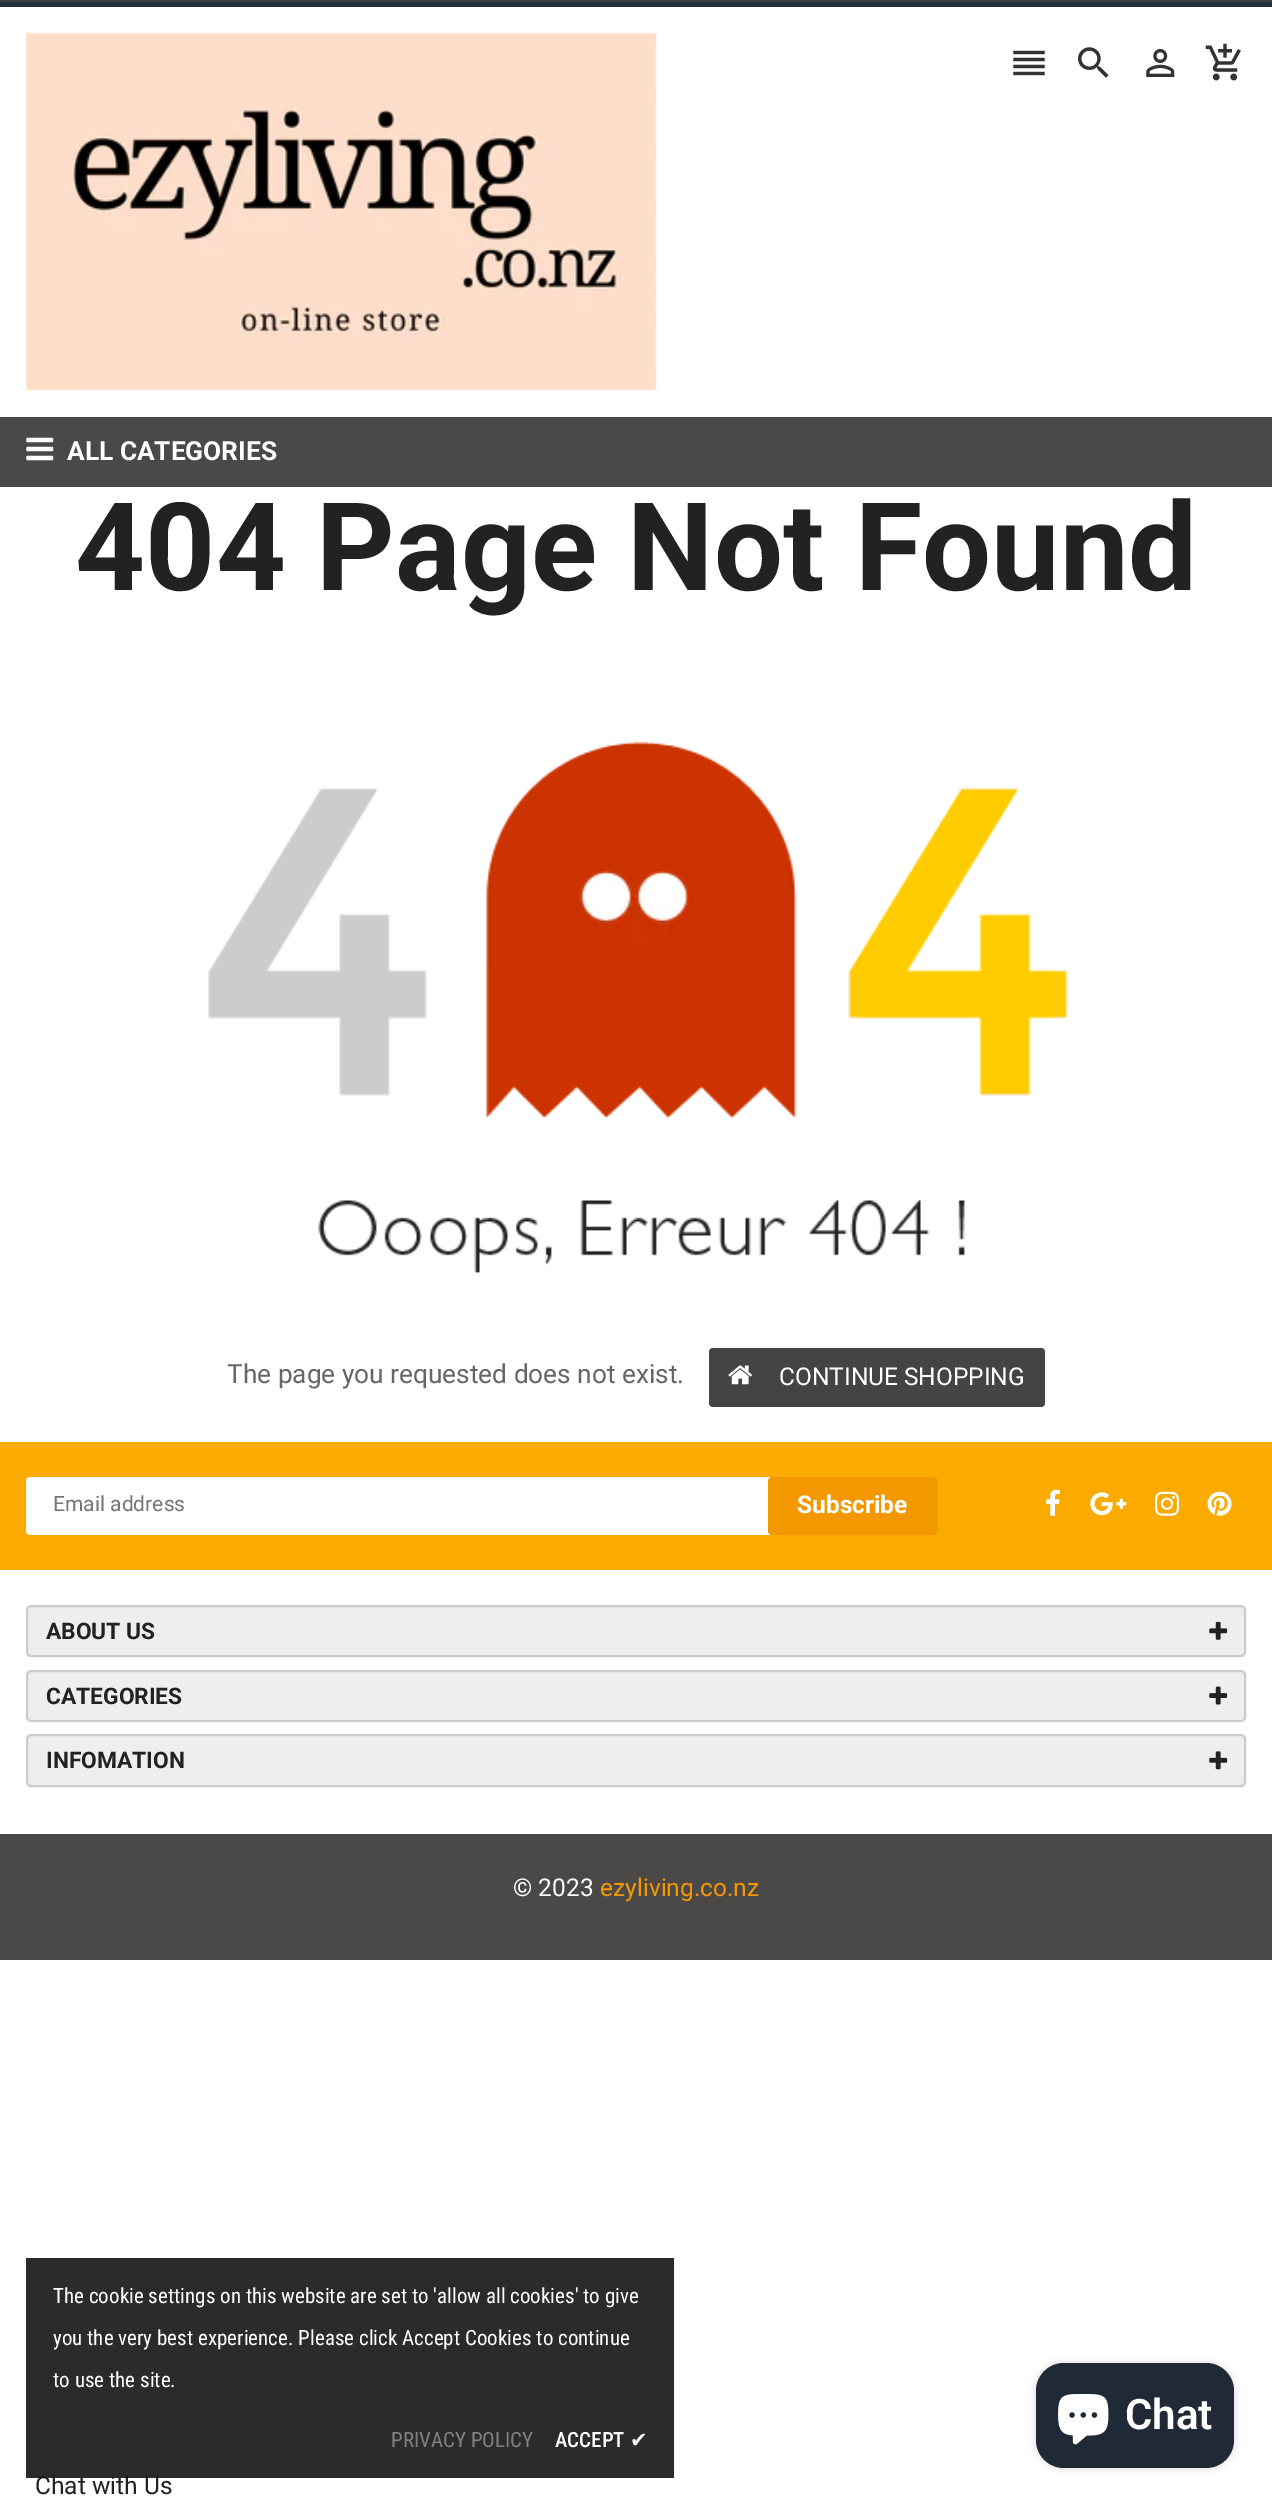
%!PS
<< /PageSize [1272 2504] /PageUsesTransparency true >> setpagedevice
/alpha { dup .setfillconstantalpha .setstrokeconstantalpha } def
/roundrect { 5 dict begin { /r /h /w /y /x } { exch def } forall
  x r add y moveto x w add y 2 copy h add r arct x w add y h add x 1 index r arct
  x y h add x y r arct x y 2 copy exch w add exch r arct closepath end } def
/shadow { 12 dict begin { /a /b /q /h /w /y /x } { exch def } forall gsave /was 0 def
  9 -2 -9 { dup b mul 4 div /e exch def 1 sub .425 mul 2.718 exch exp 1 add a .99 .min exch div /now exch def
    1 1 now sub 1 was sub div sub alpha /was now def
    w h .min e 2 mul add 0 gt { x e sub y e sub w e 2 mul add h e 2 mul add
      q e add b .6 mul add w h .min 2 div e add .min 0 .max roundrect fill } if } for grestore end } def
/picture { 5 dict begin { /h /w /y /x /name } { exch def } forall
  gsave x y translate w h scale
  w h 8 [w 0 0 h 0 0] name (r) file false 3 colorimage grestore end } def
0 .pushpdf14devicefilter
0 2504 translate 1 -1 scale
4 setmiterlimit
1 setgray
0 0 1272 2504 rectfill
0.294 0.286 0.282 setrgbcolor
0 0 1272 2 rectfill
0 setgray
0 2 1272 415 0 4.5 0.2 shadow
1 setgray
0 7 1272 410 rectfill
0.137 0.184 0.243 setrgbcolor
0 2 1272 5 rectfill
(img1.rgb) 26 33 631 358 picture
(img2.rgb) 1013 50 32 26 picture
(img3.rgb) 1078 47 31 31 picture
(img4.rgb) 1146 49 29 28 picture
(img5.rgb) 1205 43 36 38 picture
0.294 0.286 0.282 setrgbcolor
0 417 1272 70 rectfill
(img6.rgb) 26 437 28 24 picture
/Roboto-Bold [26.25 0 0 -26.25 0 0] selectfont
1 setgray
67 460 moveto (ALL CATEGORIES) show
/Roboto-Bold [122.5 0 0 -122.5 0 0] selectfont
0.133 setgray
75 590 moveto (404 Page Not Found) show
(img7.rgb) 208 741 860 532 picture
/Roboto-Regular [26.25 0 0 -26.25 0 0] selectfont
0.4 setgray
227 1383 moveto (The page you requested does not exist.) show
0.267 setgray
709 1348 336 59 4 roundrect fill
(img8.rgb) 728 1365 24 20 picture
/Roboto-Regular [24.5 0 0 -24.5 0 0] selectfont
1 setgray
779 1385 moveto (CONTINUE SHOPPING) show
0.984 0.671 0 setrgbcolor
0 1442 1272 128 rectfill
1 setgray
newpath 30 1477 moveto 935 1477 lineto 935 1535 lineto 30 1535 lineto 28 1535 26 1533 26 1531 curveto 26 1481 lineto 26 1479 28 1477 30 1477 curveto closepath fill
/Roboto-Regular [21 0 0 -21 0 0] selectfont
0.459 setgray
53 1511 moveto (Email address) show
0.953 0.596 0 setrgbcolor
newpath 772 1477 moveto 933 1477 lineto 936 1477 938 1479 938 1482 curveto 938 1530 lineto 938 1533 936 1535 933 1535 curveto 772 1535 lineto 770 1535 768 1533 768 1531 curveto 768 1481 lineto 768 1479 770 1477 772 1477 curveto closepath fill
/Roboto-Bold [24.5 0 0 -24.5 0 0] selectfont
1 setgray
797 1513 moveto (Subscribe) show
(img9.rgb) 1046 1489 14 27 picture
(img10.rgb) 1090 1492 37 24 picture
(img11.rgb) 1155 1491 24 25 picture
(img12.rgb) 1207 1491 25 25 picture
0.933 setgray
27 1606 1218 50 4 roundrect gsave fill grestore
0.8 setgray
2 setlinewidth
stroke
/Roboto-Bold [22.75 0 0 -22.75 0 0] selectfont
0.133 setgray
46 1639 moveto (ABOUT US) show
(img13.rgb) 1209 1621 19 19 picture
0.933 setgray
27 1671 1218 50 4 roundrect gsave fill grestore
0.8 setgray
stroke
0.133 setgray
46 1704 moveto (CATEGORIES) show
(img14.rgb) 1209 1686 19 19 picture
0.933 setgray
27 1735 1218 51 4 roundrect gsave fill grestore
0.8 setgray
stroke
0.133 setgray
46 1768 moveto (INFOMATION) show
(img15.rgb) 1209 1751 19 19 picture
0.294 0.286 0.282 setrgbcolor
0 1834 1272 126 rectfill
/Roboto-Regular [24.5 0 0 -24.5 0 0] selectfont
1 setgray
513 1896 moveto (© 2023) show
0.953 0.596 0 setrgbcolor
600 1896 moveto (ezyliving.co.nz) show
0.133 setgray
35 2494 moveto (Chat with Us) show
0.9 alpha
0.078 setgray
26 2258 648 220 rectfill
/RobotoCondensed-Regular [21 0 0 -21 0 0] selectfont
1 alpha
1 setgray
53 2303 moveto (The cookie settings on this website are set to 'allow all cookies' to give) show
53 2345 moveto (you the very best experience. Please click Accept Cookies to continue) show
53 2387 moveto (to use the site.) show
0.506 setgray
391 2447 moveto (PRIVACY POLICY) show
/RobotoCondensed-Medium [21 0 0 -21 0 0] selectfont
1 setgray
555 2447 moveto (ACCEPT) show
/DejaVuSans-Regular [21 0 0 -21 0 0] selectfont
630 2447 moveto (✔) show
0 setgray
1036 2363 198 105 28 4.5 0.15 shadow
0.125 0.165 0.212 setrgbcolor
1036 2363 198 105 28 roundrect fill
(img16.rgb) 1058 2394 51 51 picture
/Roboto-SemiBold [42 0 0 -42 0 0] selectfont
1 setgray
1125 2429 moveto (Chat) show
.poppdf14devicefilter showpage
